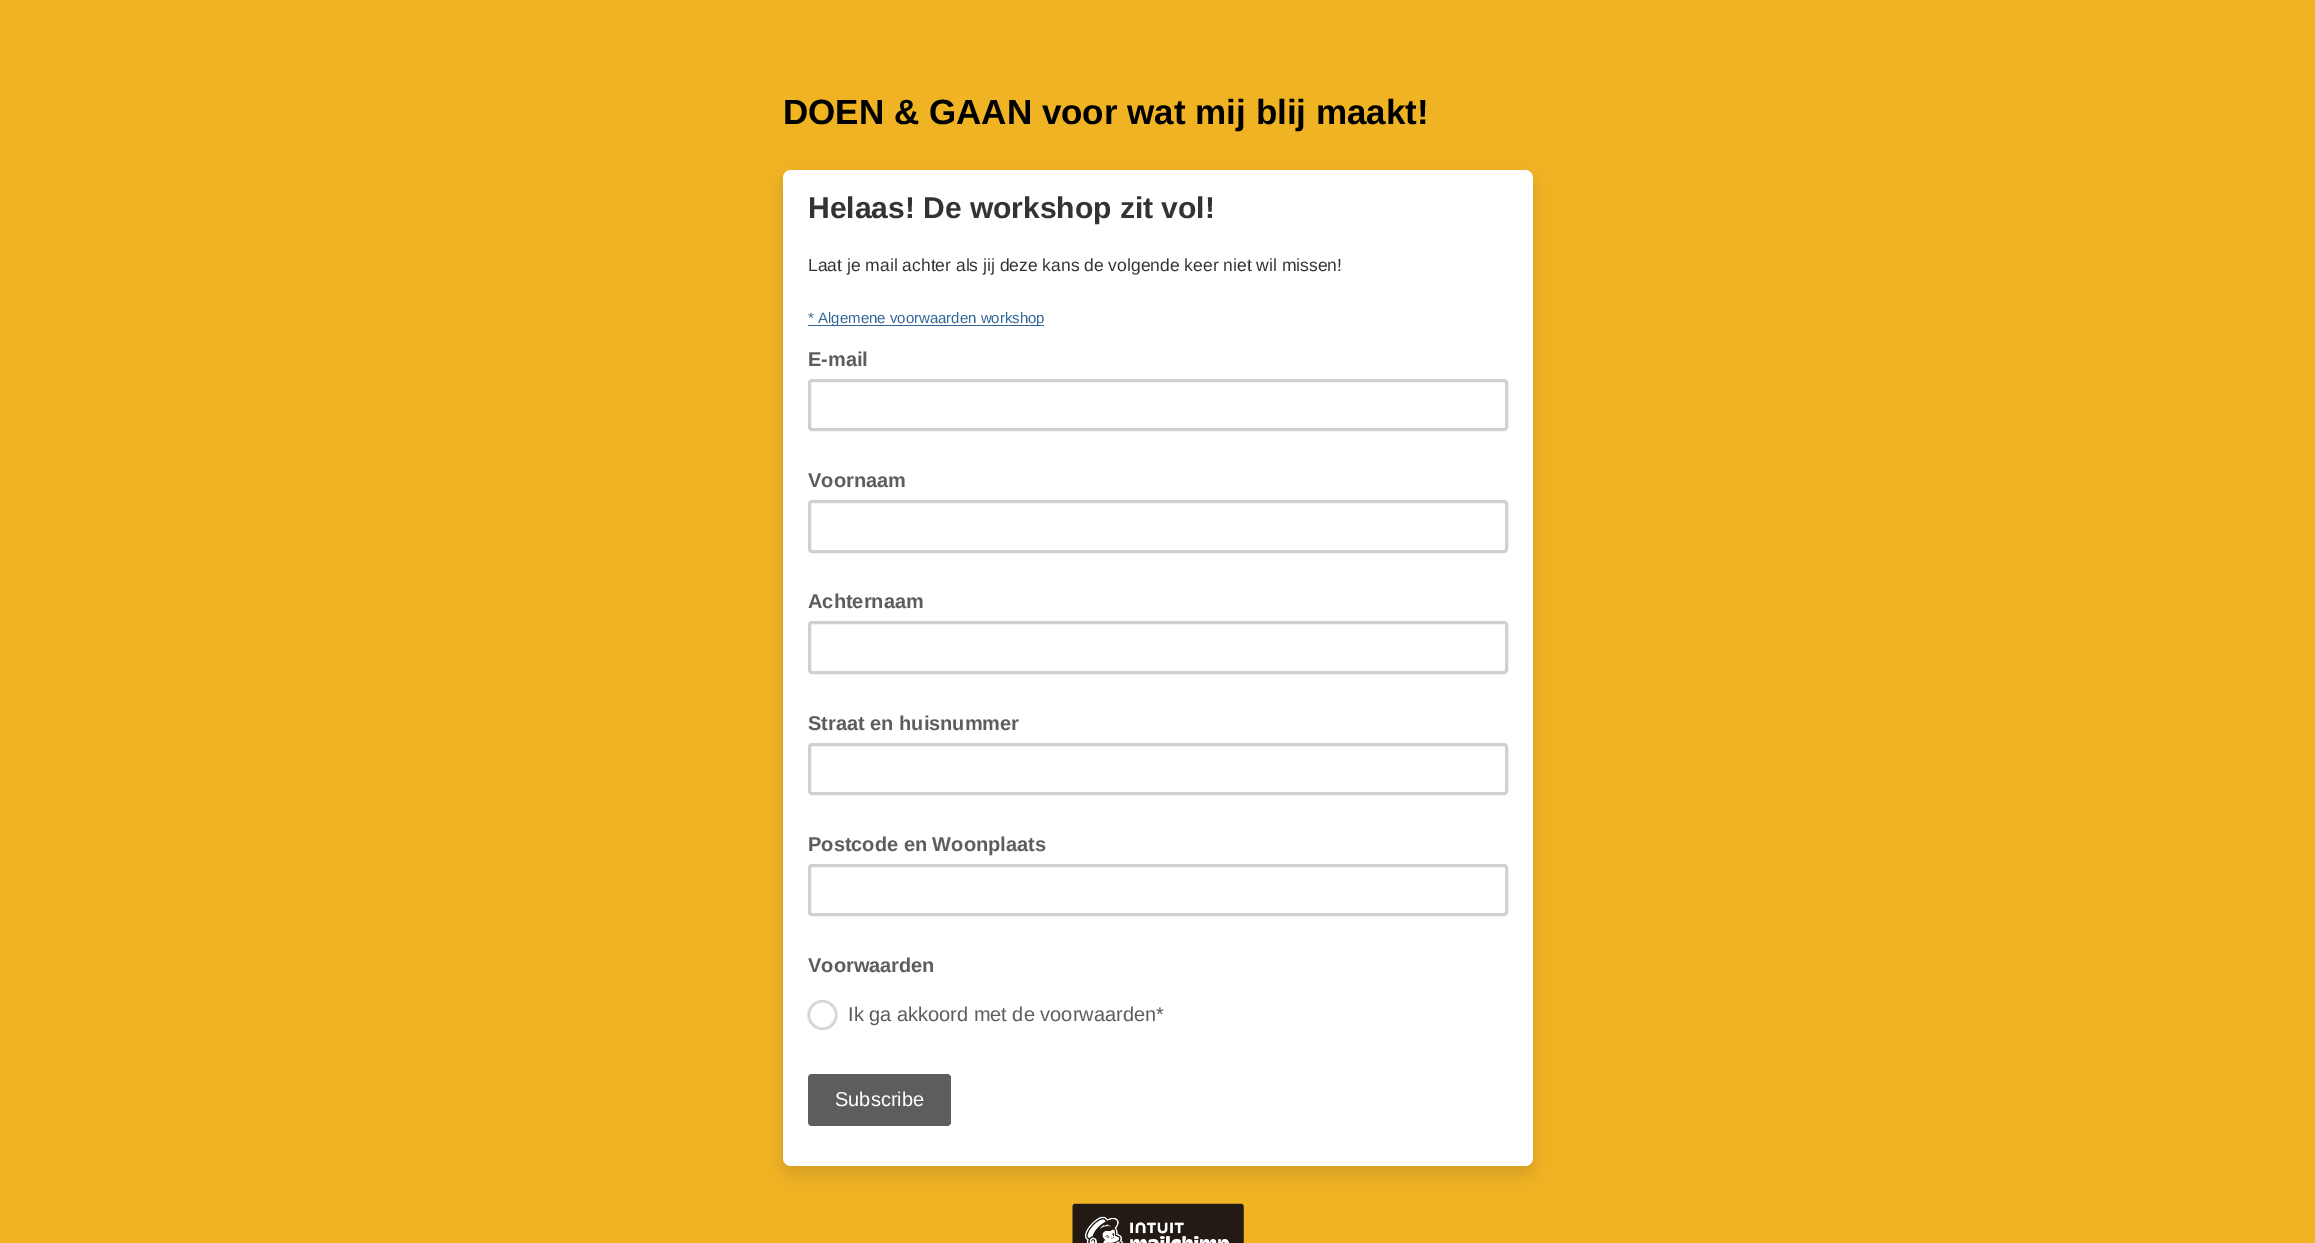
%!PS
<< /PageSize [2315 1243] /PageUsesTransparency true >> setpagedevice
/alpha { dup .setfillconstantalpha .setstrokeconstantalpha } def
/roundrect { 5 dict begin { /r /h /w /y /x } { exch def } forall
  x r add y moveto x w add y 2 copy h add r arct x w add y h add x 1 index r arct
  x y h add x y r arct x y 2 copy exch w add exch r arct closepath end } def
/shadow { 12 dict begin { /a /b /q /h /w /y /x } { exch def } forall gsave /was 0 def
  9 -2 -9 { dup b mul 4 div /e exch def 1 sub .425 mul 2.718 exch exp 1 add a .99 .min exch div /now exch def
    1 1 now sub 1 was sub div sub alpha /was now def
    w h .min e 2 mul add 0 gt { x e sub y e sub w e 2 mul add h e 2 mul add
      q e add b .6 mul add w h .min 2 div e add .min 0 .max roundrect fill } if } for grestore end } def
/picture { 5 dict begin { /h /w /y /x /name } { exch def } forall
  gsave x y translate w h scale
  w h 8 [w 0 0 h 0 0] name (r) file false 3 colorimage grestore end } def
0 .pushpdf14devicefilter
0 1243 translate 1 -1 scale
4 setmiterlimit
0.941 0.702 0.137 setrgbcolor
0 0 2315 1243 rectfill
/LiberationSans-Bold [35 0 0 -35 0 0] selectfont
0 setgray
783 124 moveto (DOEN & GAAN voor wat mij blij maakt!) show
0.051 0.071 0.086 setrgbcolor
783 178 750 996 8 7.5 0.12 shadow
1 setgray
783 170 750 996 8 roundrect fill
/LiberationSans-Bold [30 0 0 -30 0 0] selectfont
0.2 setgray
808 218 moveto (Helaas! De workshop zit vol!) show
/LiberationSans-Regular [17.5 0 0 -17.5 0 0] selectfont
808 271 moveto (Laat je mail achter als jij deze kans de volgende keer niet wil missen!) show
0.2 0.4 0.6 setrgbcolor
808 325 236 1 rectfill
/LiberationSans-Regular [15 0 0 -15 0 0] selectfont
808 323 moveto (* Algemene voorwaarden workshop) show
/LiberationSans-Bold [20 0 0 -20 0 0] selectfont
0.365 setgray
808 366 moveto (E-mail) show
0.816 setgray
3 setlinewidth
809.5 380.5 697 49 2.5 roundrect stroke
0.365 setgray
808 487 moveto (Voornaam) show
0.816 setgray
809.5 501.5 697 50 2.5 roundrect stroke
0.365 setgray
808 608 moveto (Achternaam) show
0.816 setgray
809.5 622.5 697 50 2.5 roundrect stroke
0.365 setgray
808 730 moveto (Straat en huisnummer) show
0.816 setgray
809.5 744.5 697 49 2.5 roundrect stroke
0.365 setgray
808 851 moveto (Postcode en Woonplaats) show
0.816 setgray
809.5 865.5 697 49 2.5 roundrect stroke
0.365 setgray
808 972 moveto (Voorwaarden) show
(img1.rgb) 807 1000 31 30 picture
/LiberationSans-Regular [20 0 0 -20 0 0] selectfont
848 1021 moveto (Ik ga akkoord met de voorwaarden*) show
808 1074 143 52 4 roundrect fill
1 setgray
835 1106 moveto (Subscribe) show
(img2.rgb) 1072 1203 172 40 picture
.poppdf14devicefilter showpage
